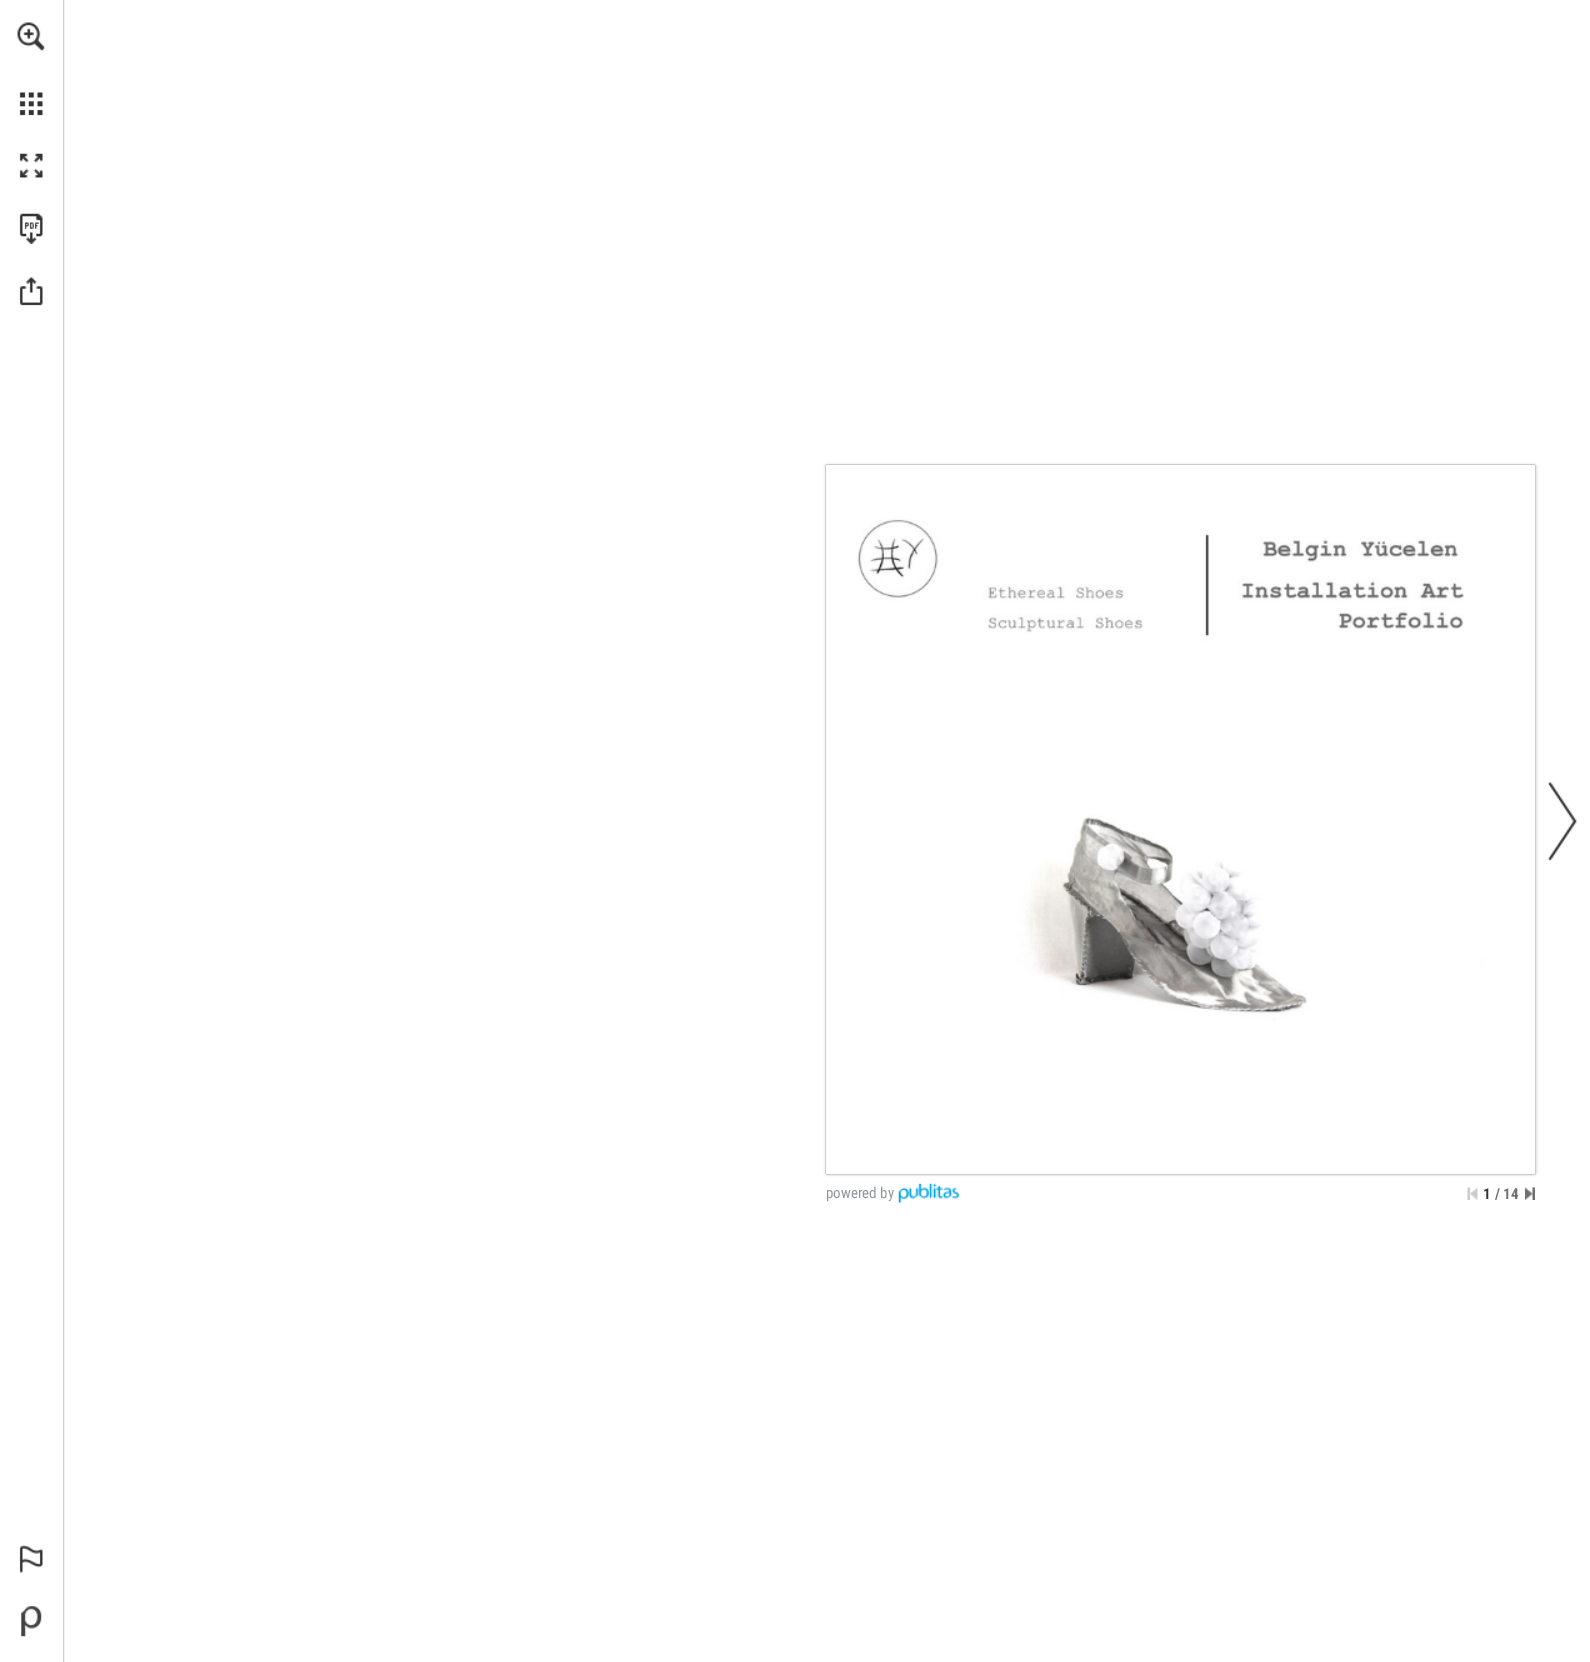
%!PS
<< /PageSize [1590 1662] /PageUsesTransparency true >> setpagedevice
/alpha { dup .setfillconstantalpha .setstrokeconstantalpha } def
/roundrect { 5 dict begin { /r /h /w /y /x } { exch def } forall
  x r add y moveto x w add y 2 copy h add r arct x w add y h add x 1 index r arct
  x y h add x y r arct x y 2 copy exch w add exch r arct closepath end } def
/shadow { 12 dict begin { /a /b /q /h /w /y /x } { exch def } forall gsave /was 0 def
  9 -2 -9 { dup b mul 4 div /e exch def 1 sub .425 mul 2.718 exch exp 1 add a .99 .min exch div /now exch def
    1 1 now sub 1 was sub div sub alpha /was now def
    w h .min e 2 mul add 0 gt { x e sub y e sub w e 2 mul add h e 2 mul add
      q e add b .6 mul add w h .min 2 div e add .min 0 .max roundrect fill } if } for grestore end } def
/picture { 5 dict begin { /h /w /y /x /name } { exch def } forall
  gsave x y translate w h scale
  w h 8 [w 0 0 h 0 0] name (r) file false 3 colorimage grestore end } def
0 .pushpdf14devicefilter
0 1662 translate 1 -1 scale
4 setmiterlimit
1 setgray
0 0 1590 1662 rectfill
0 setgray
1 0 63 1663 0 0.5 0.2 shadow
1 setgray
0 0 63 1662 rectfill
(img1.rgb) 17 22 29 30 picture
(img2.rgb) 19 92 24 24 picture
(img3.rgb) 19 153 24 25 picture
(img4.rgb) 19 213 24 31 picture
(img5.rgb) 19 277 24 29 picture
(img6.rgb) 19 1545 24 28 picture
(img7.rgb) 21 1606 21 31 picture
0.071 setgray
824 463 714 713 4 1 0.05 shadow
0.8 setgray
825.5 464.5 710 710 2 roundrect stroke
(img8.rgb) 826 465 709 709 picture
(img9.rgb) 857 519 623 551 picture
(img10.rgb) 898 1183 61 20 picture
/RobotoCondensed-Regular [15 0 0 -15 0 0] selectfont
0.561 0.588 0.608 setrgbcolor
826 1198 moveto (powered by) show
(img11.rgb) 1548 782 29 79 picture
(img12.rgb) 1467 1187 11 13 picture
/RobotoCondensed-Bold [15 0 0 -15 0 0] selectfont
0.2 setgray
1483 1199 moveto (1) show
0.439 setgray
1495 1199 moveto (/ 14) show
(img13.rgb) 1525 1187 10 13 picture
.poppdf14devicefilter showpage
